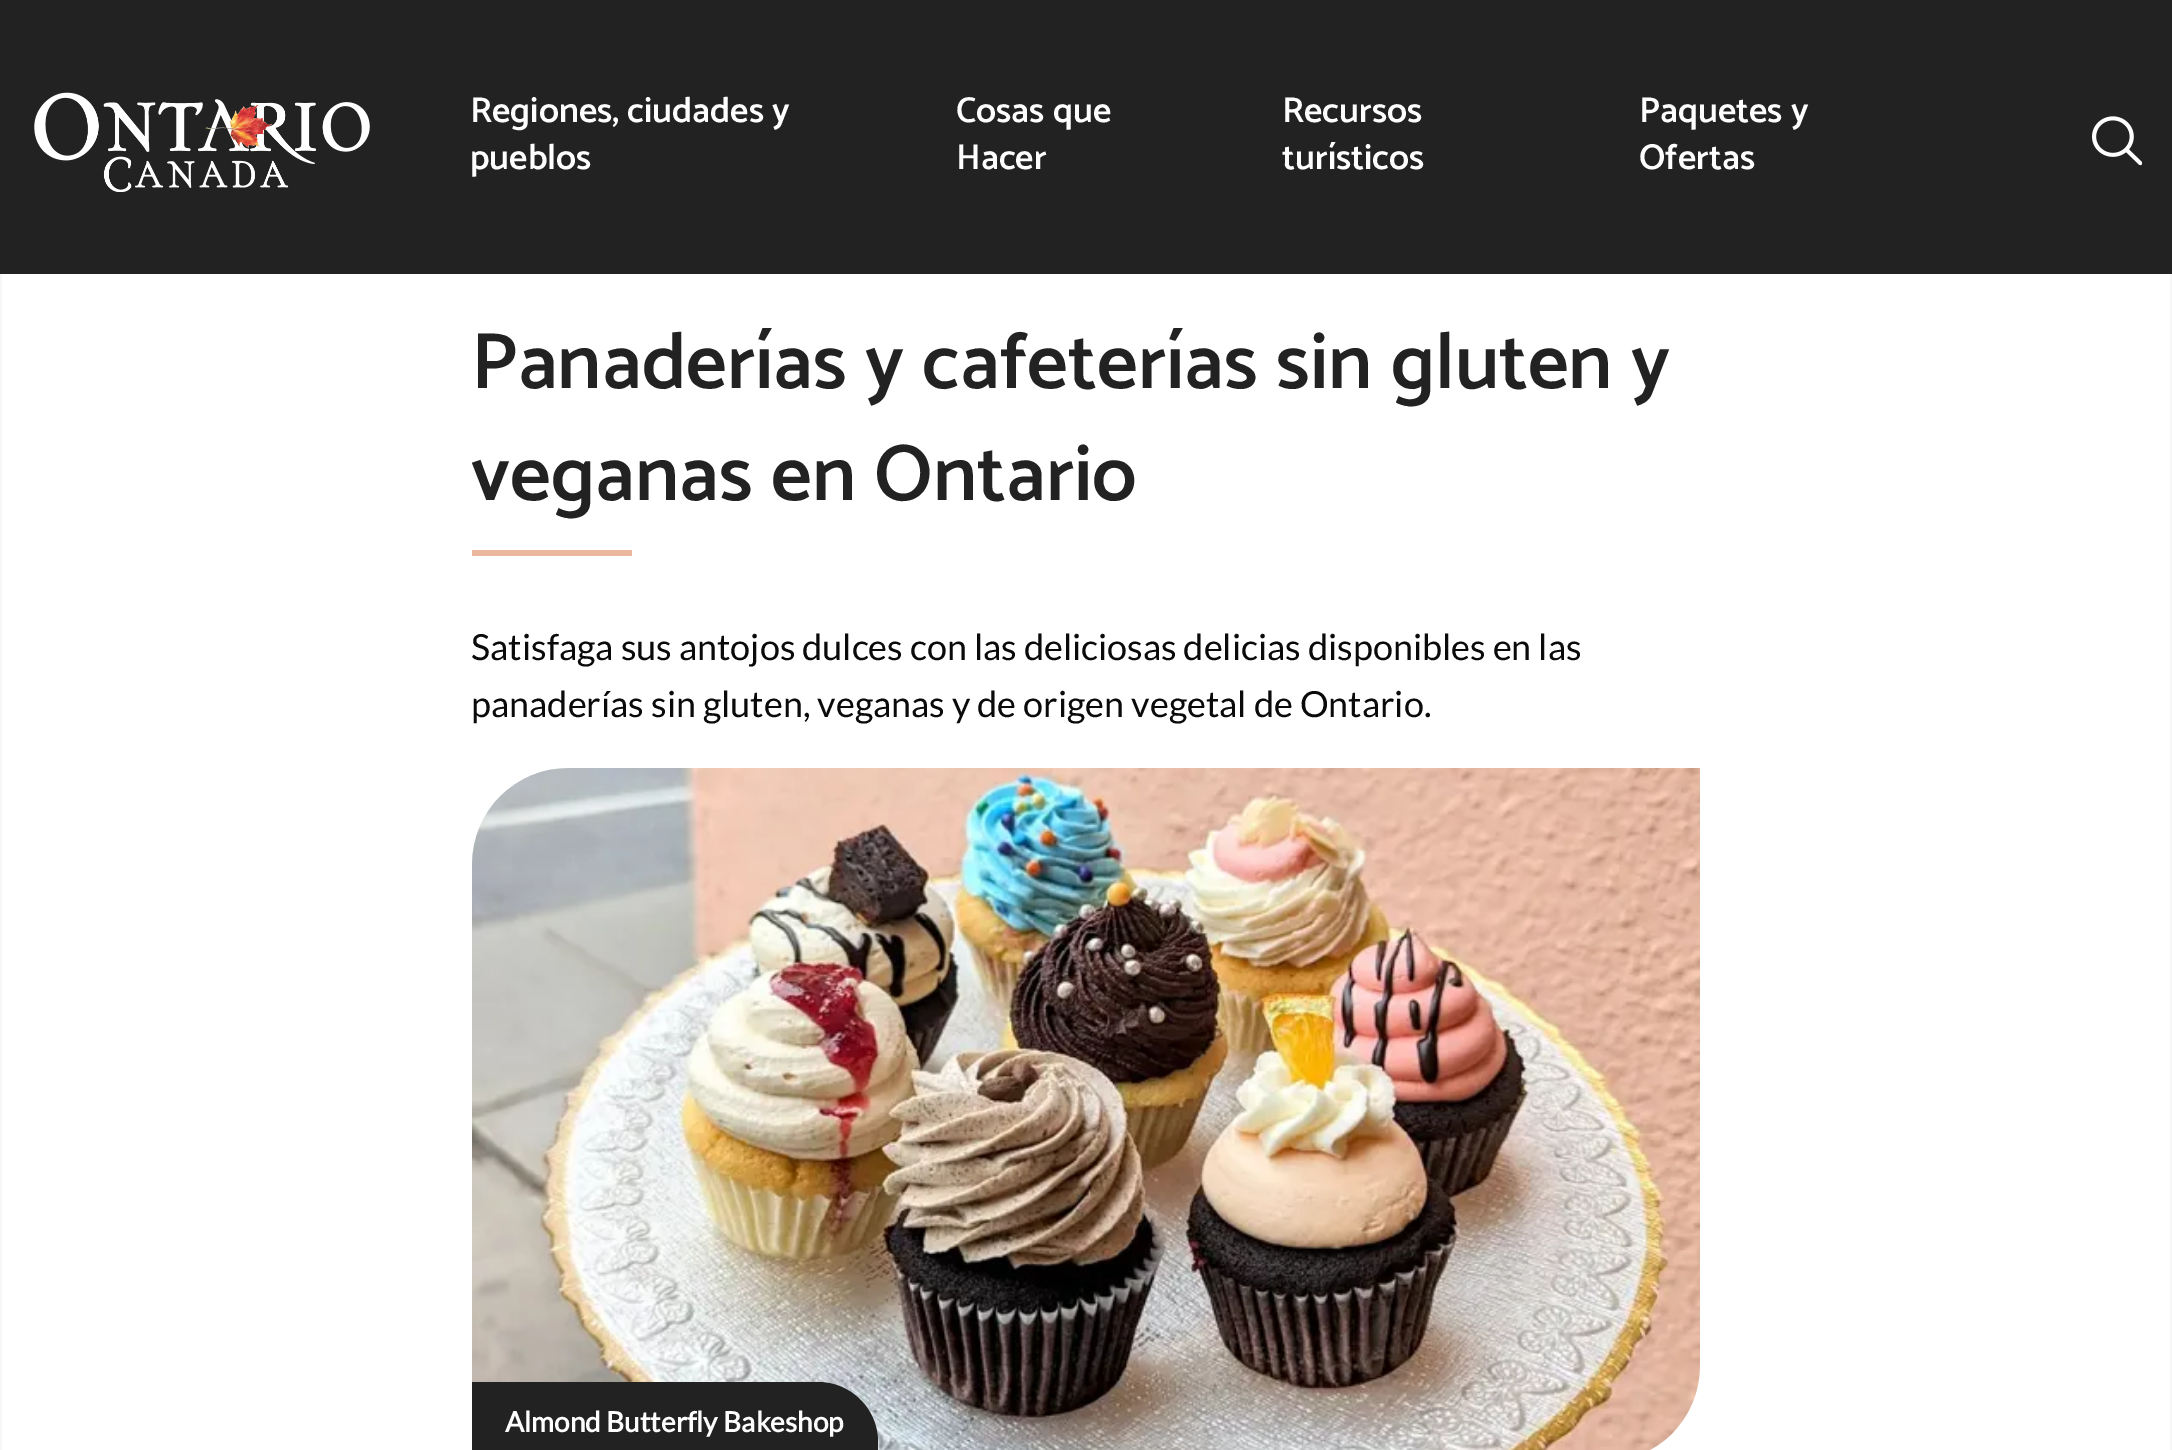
%!PS
<< /PageSize [2172 1450] >> setpagedevice
/picture { 5 dict begin { /h /w /y /x /name } { exch def } forall
  gsave x y translate w h scale
  w h 8 [w 0 0 h 0 0] name (r) file false 3 colorimage grestore end } def
0 1450 translate 1 -1 scale
4 setmiterlimit
1 setgray
0 0 2172 1450 rectfill
0.133 setgray
0 0 2172 274 rectfill
(img1.rgb) 34 92 336 100 picture
/Catamaran-Thin [36 0 0 -36 0 0] selectfont
0.996 setgray
470 122 moveto (Regiones, ciudades y) show
470 169 moveto (pueblos) show
956 122 moveto (Cosas que) show
956 169 moveto (Hacer) show
1282 122 moveto (Recursos) show
1282 169 moveto (turísticos) show
1639 122 moveto (Paquetes y) show
1639 169 moveto (Ofertas) show
(img2.rgb) 2092 116 50 50 picture
0.969 setgray
2170 274 2 1176 rectfill
0 274 2 1176 rectfill
/Catamaran-Thin [80 0 0 -80 0 0] selectfont
0.133 setgray
471 388 moveto (Panaderías y cafeterías sin gluten y) show
471 500 moveto (veganas en Ontario) show
0.922 0.718 0.624 setrgbcolor
472 550 160 6 rectfill
/Lato-Regular [36 0 0 -36 0 0] selectfont
0.039 setgray
471 660 moveto (Satisfaga sus antojos dulces con las deliciosas delicias disponibles en las) show
471 717 moveto (panaderías sin gluten, veganas y de origen vegetal de Ontario.) show
(img3.rgb) 472 768 1228 682 picture
0.133 setgray
newpath 472 1382 moveto 818 1382 lineto 851 1382 878 1409 878 1442 curveto 878 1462 lineto 472 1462 lineto closepath fill
/Lato-Bold [28 0 0 -28 0 0] selectfont
0.996 setgray
505 1432 moveto (Almond Butterfly Bakeshop) show
showpage
